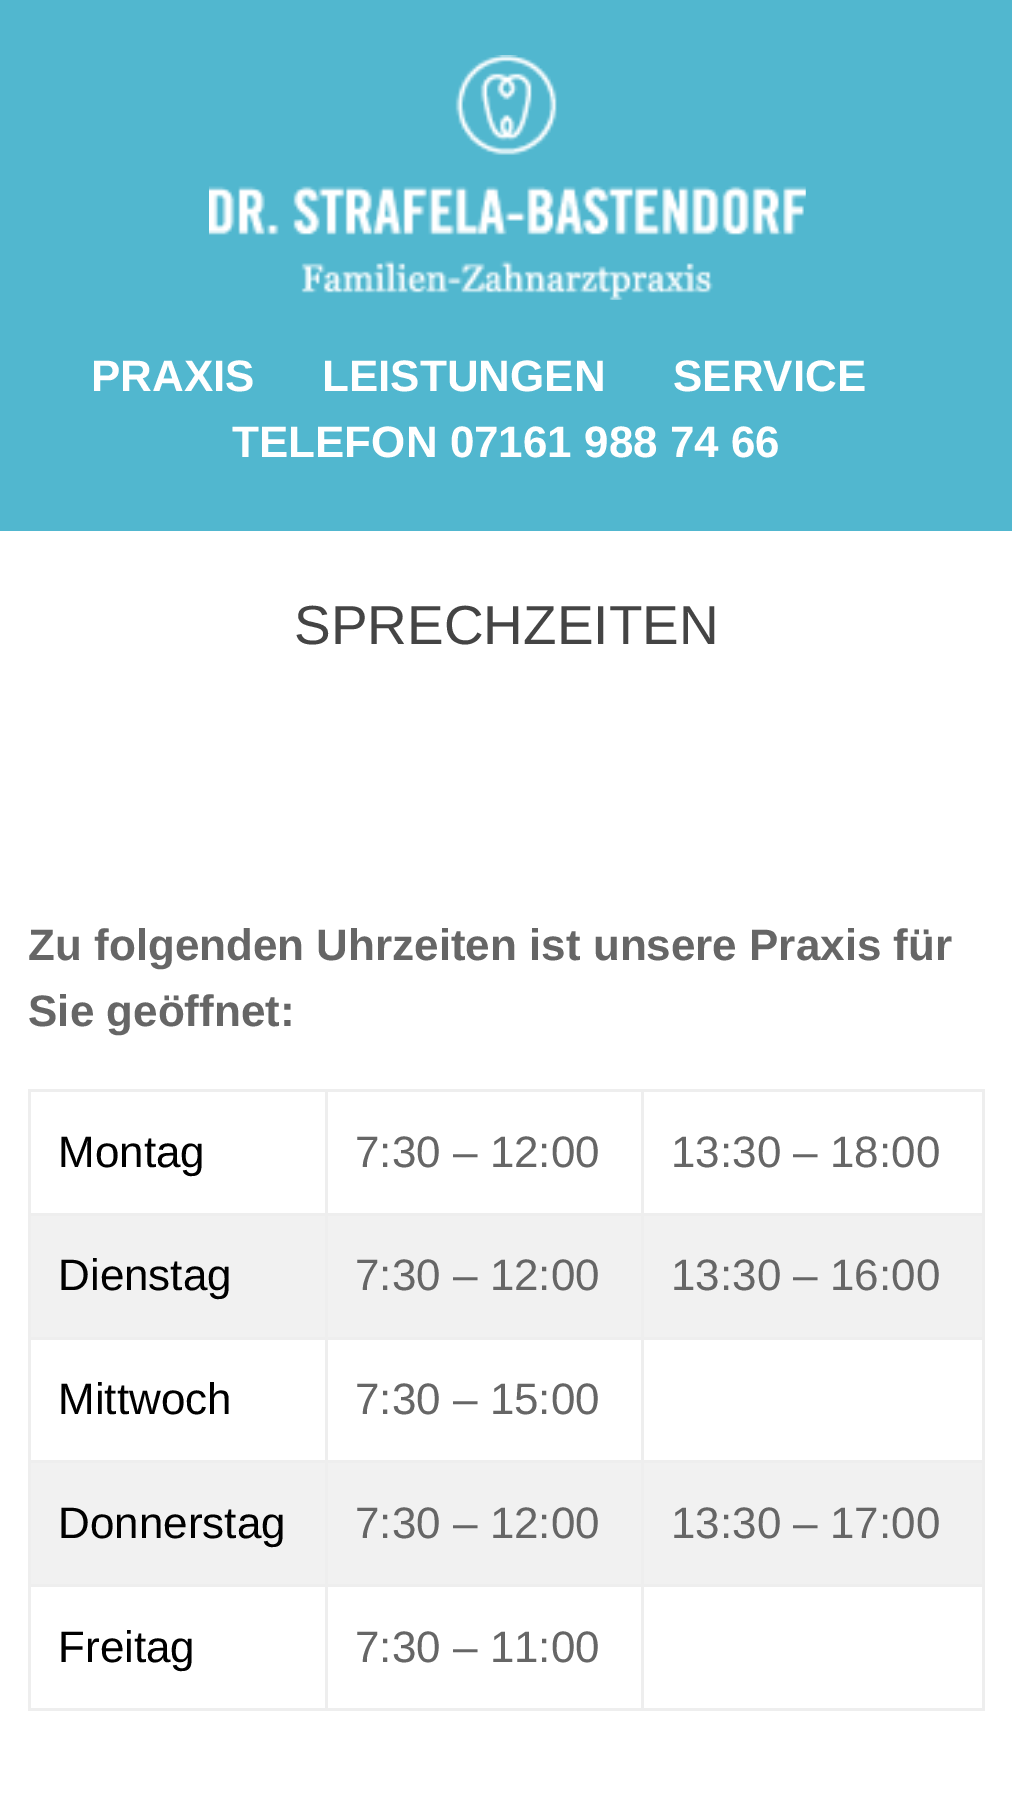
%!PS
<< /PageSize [1012 1804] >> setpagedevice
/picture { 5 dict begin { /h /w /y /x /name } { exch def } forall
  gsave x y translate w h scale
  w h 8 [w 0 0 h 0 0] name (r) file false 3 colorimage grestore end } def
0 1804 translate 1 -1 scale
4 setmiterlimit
1 setgray
0 0 1012 1804 rectfill
0.318 0.718 0.812 setrgbcolor
0 0 1012 531 rectfill
(img1.rgb) 209 55 597 245 picture
/LiberationSans-Bold [44 0 0 -44 0 0] selectfont
1 setgray
91 391 moveto (PRAXIS) show
322 391 moveto (LEISTUNGEN) show
673 391 moveto (SERVICE) show
232 457 moveto (TELEFON 07161 988 74 66) show
/LiberationSans-Regular [55 0 0 -55 0 0] selectfont
0.267 setgray
294 644 moveto (SPRECHZEITEN) show
/LiberationSans-Bold [44 0 0 -44 0 0] selectfont
0.4 setgray
28 960 moveto (Zu folgenden Uhrzeiten ist unsere Praxis für) show
28 1026 moveto (Sie geöffnet:) show
0.933 setgray
641 1089 344 3 rectfill
641 1213 344 3 rectfill
0.945 setgray
31 1216 951 121 rectfill
0.933 setgray
641 1337 344 3 rectfill
641 1460 344 3 rectfill
0.945 setgray
31 1463 951 121 rectfill
0.933 setgray
641 1584 344 3 rectfill
982 1584 3 127 rectfill
641 1708 344 3 rectfill
641 1584 3 127 rectfill
325 1584 319 3 rectfill
641 1460 3 127 rectfill
325 1460 319 3 rectfill
641 1337 3 126 rectfill
325 1337 319 3 rectfill
641 1213 3 126 rectfill
325 1213 319 3 rectfill
641 1089 3 127 rectfill
325 1089 319 3 rectfill
325 1708 319 3 rectfill
325 1584 3 127 rectfill
28 1584 299 3 rectfill
325 1460 3 127 rectfill
28 1460 299 3 rectfill
325 1337 3 126 rectfill
28 1337 299 3 rectfill
325 1213 3 126 rectfill
28 1213 299 3 rectfill
325 1089 3 127 rectfill
28 1089 299 3 rectfill
28 1708 299 3 rectfill
28 1584 3 127 rectfill
28 1460 3 127 rectfill
28 1337 3 126 rectfill
28 1213 3 126 rectfill
28 1089 3 127 rectfill
/LiberationSans-Regular [44 0 0 -44 0 0] selectfont
0 setgray
58 1167 moveto (Montag) show
0.4 setgray
355 1167 moveto (7:30 – 12:00) show
0.933 setgray
982 1460 3 127 rectfill
982 1337 3 126 rectfill
982 1213 3 126 rectfill
982 1089 3 127 rectfill
0.4 setgray
671 1167 moveto (13:30 – 18:00) show
0 setgray
58 1290 moveto (Dienstag) show
0.4 setgray
355 1290 moveto (7:30 – 12:00) show
671 1290 moveto (13:30 – 16:00) show
0 setgray
58 1414 moveto (Mittwoch) show
0.4 setgray
355 1414 moveto (7:30 – 15:00) show
0 setgray
58 1538 moveto (Donnerstag) show
0.4 setgray
355 1538 moveto (7:30 – 12:00) show
671 1538 moveto (13:30 – 17:00) show
0 setgray
58 1662 moveto (Freitag) show
0.4 setgray
355 1662 moveto (7:30 – 11:00) show
showpage
